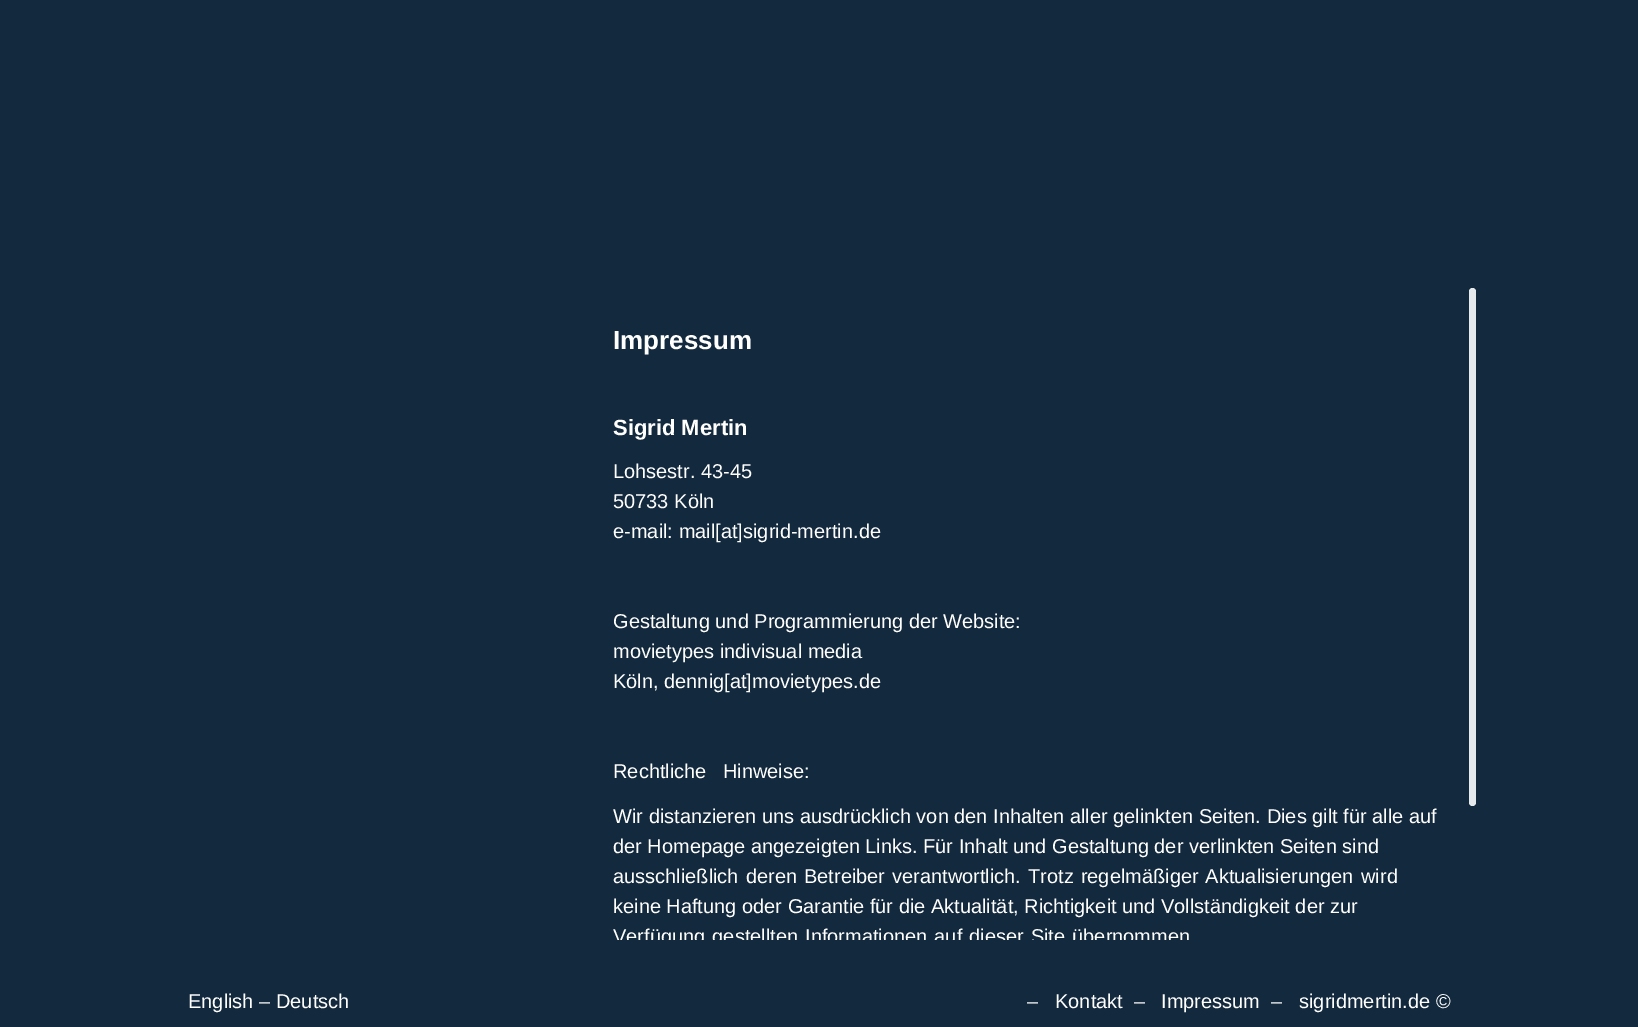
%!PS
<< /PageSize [1638 1027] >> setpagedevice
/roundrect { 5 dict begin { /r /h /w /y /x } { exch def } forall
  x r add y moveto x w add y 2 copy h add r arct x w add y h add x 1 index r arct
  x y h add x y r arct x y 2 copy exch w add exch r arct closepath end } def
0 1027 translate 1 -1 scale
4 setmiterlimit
0.075 0.161 0.243 setrgbcolor
0 0 1638 1027 rectfill
/LiberationSans-Bold [26 0 0 -26 0 0] selectfont
1 setgray
613 349 moveto (Impressum) show
/LiberationSans-Bold [22 0 0 -22 0 0] selectfont
613 435 moveto (Sigrid Mertin) show
/LiberationSans-Regular [20 0 0 -20 0 0] selectfont
613 478 moveto (Lohsestr. 43-45) show
613 508 moveto (50733 Köln) show
613 538 moveto (e-mail: mail[at]sigrid-mertin.de) show
613 628 moveto (Gestaltung und Programmierung der Website:) show
613 658 moveto (movietypes indivisual media) show
613 688 moveto (Köln, dennig[at]movietypes.de) show
613 778 moveto 11 0 32 (Rechtliche Hinweise:) widthshow
613 823 moveto (Wir distanzieren uns ausdrücklich von den Inhalten aller gelinkten Seiten. Dies gilt für alle auf) show
613 853 moveto (der Homepage angezeigten Links. Für Inhalt und Gestaltung der verlinkten Seiten sind) show
613 883 moveto 1.5 0 32 (ausschließlich deren Betreiber verantwortlich. Trotz regelmäßiger Aktualisierungen) widthshow
1361 883 moveto (wird) show
613 913 moveto (keine Haftung oder Garantie für die Aktualität, Richtigkeit und Vollständigkeit der zur) show
gsave
189 288 1287 652 rectclip
613 943 moveto 1.5 0 32 (Verfügung gestellten Informationen auf dieser Site übernommen) widthshow
grestore
188 1008 moveto (English – Deutsch) show
1027 1008 moveto (–) show
1055 1008 moveto (Kontakt) show
1134 1008 moveto (–) show
1161 1008 moveto (Impressum) show
1271 1008 moveto (–) show
1299 1008 moveto (sigridmertin.de ©) show
0.906 0.918 0.925 setrgbcolor
1469 288 7 518 3.5 roundrect fill
showpage
